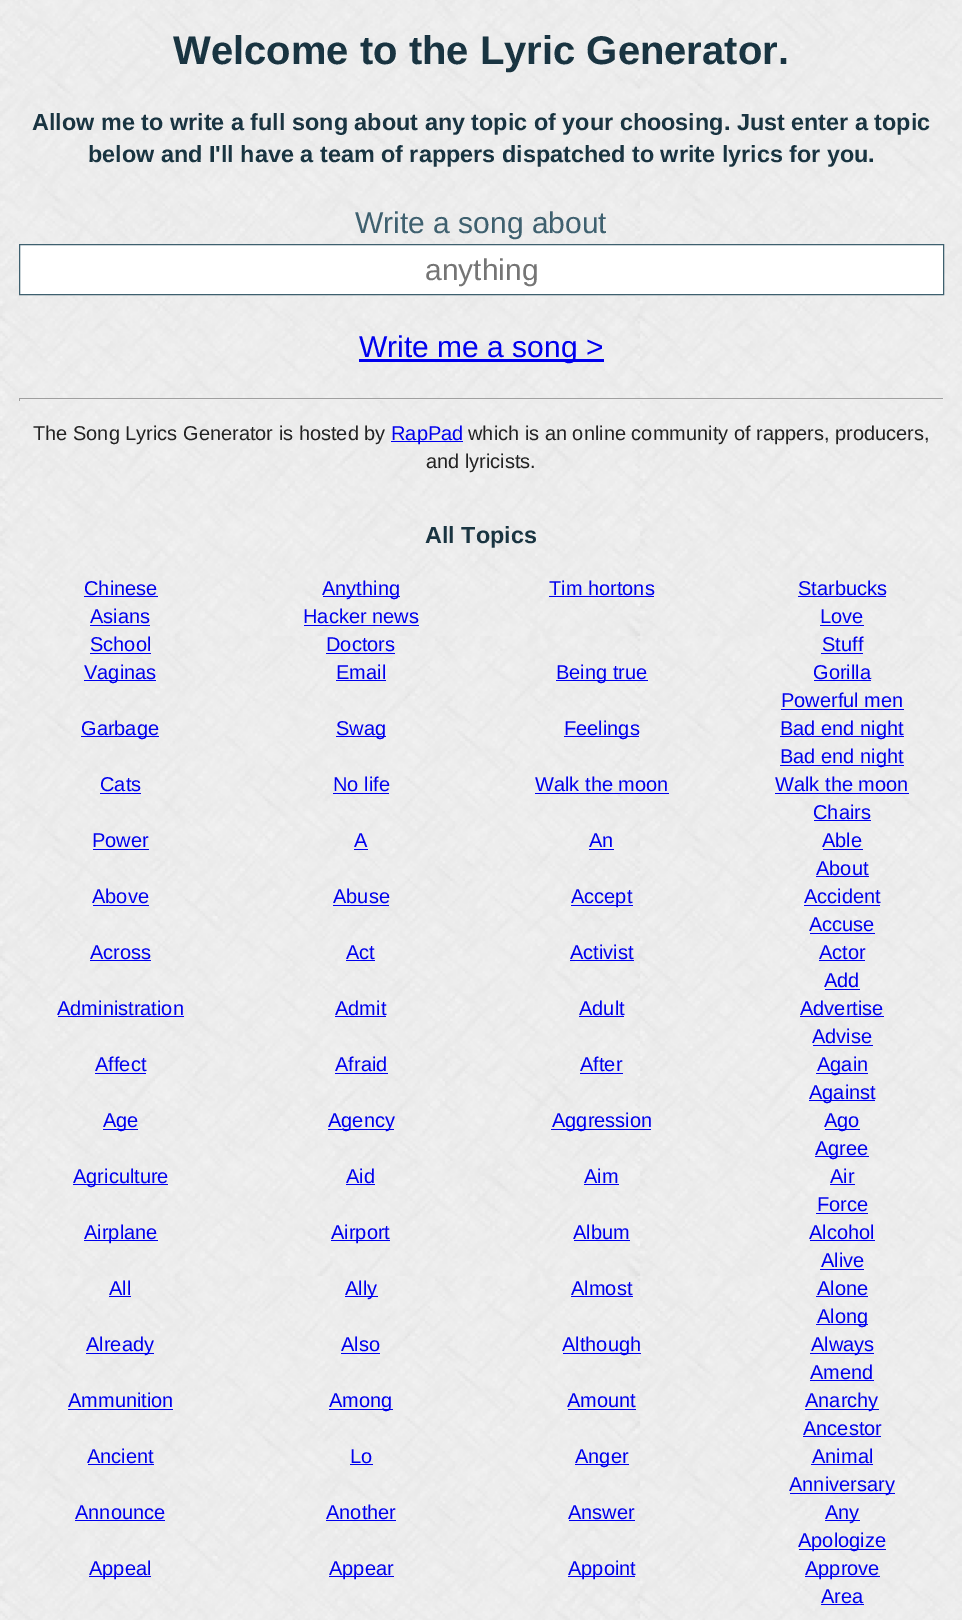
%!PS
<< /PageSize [962 1620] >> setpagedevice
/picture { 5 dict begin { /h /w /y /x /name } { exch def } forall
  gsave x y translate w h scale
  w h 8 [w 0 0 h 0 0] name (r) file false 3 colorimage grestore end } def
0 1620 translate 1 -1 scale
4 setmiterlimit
1 setgray
0 0 962 1620 rectfill
(img1.rgb) 0 0 962 1620 picture
/LiberationSans-Bold [40 0 0 -40 0 0] selectfont
0.098 0.204 0.255 setrgbcolor
173 64 moveto (Welcome to the Lyric Generator.) show
/LiberationSans-Bold [23.4 0 0 -23.4 0 0] selectfont
32 130 moveto (Allow me to write a full song about any topic of your choosing. Just enter a topic) show
88 162 moveto (below and I'll have a team of rappers dispatched to write lyrics for you.) show
/LiberationSans-Regular [30 0 0 -30 0 0] selectfont
0.243 0.376 0.435 setrgbcolor
355 233 moveto (Write a song about) show
1 setgray
newpath 19.5 244.5 moveto 943.5 244.5 lineto 943.5 294.5 lineto 19.5 294.5 lineto closepath gsave fill grestore
0.243 0.376 0.435 setrgbcolor
stroke
0.459 setgray
425 280 moveto (anything) show
0 0 0.933 setrgbcolor
359 359 245 3 rectfill
359 357 moveto (Write me a song >) show
0.624 setgray
19 398 925 1 rectfill
0.933 setgray
943 398 1 3 rectfill
19 399 901 1 rectfill
0.624 setgray
19 398 1 3 rectfill
/LiberationSans-Regular [20 0 0 -20 0 0] selectfont
0.133 setgray
33 440 moveto (The Song Lyrics Generator is hosted by) show
0 0 0.933 setrgbcolor
391 441 72 1 rectfill
391 440 moveto (RapPad) show
0.133 setgray
468 440 moveto (which is an online community of rappers, producers,) show
426 468 moveto (and lyricists.) show
/LiberationSans-Bold [23.4 0 0 -23.4 0 0] selectfont
0.098 0.204 0.255 setrgbcolor
425 543 moveto (All Topics) show
/LiberationSans-Regular [20 0 0 -20 0 0] selectfont
0 0 0.933 setrgbcolor
84 595 moveto (Chinese) show
84 596 74 1 rectfill
323 596 77 1 rectfill
322 595 moveto (Anything) show
549 595 moveto (Tim hortons) show
549 596 105 1 rectfill
798 595 moveto (Starbucks) show
798 596 88 1 rectfill
90 623 moveto (Asians) show
90 625 60 1 rectfill
303 623 moveto (Hacker news) show
304 625 115 1 rectfill
820 623 moveto (Love) show
820 625 44 1 rectfill
90 651 moveto (School) show
90 653 61 1 rectfill
326 651 moveto (Doctors) show
326 653 69 1 rectfill
822 651 moveto (Stuff) show
821 653 42 1 rectfill
84 680 72 1 rectfill
84 679 moveto (Vaginas) show
336 679 moveto (Email) show
336 680 50 1 rectfill
556 680 92 1 rectfill
556 679 moveto (Being true) show
813 679 moveto (Gorilla) show
814 680 57 1 rectfill
781 707 moveto (Powerful men) show
781 709 123 1 rectfill
81 736 78 1 rectfill
81 735 moveto (Garbage) show
336 736 50 1 rectfill
336 735 moveto (Swag) show
564 736 75 1 rectfill
564 735 moveto (Feelings) show
780 736 124 1 rectfill
780 735 moveto (Bad end night) show
780 765 124 1 rectfill
780 763 moveto (Bad end night) show
100 791 moveto (Cats) show
100 793 41 1 rectfill
333 791 moveto (No life) show
333 793 56 1 rectfill
535 791 moveto (Walk the moon) show
535 793 134 1 rectfill
775 791 moveto (Walk the moon) show
775 793 134 1 rectfill
813 819 moveto (Chairs) show
814 820 57 1 rectfill
92 847 moveto (Power) show
93 849 56 1 rectfill
354 847 moveto (A) show
354 849 14 1 rectfill
589 847 moveto (An) show
589 849 25 1 rectfill
822 847 moveto (Able) show
823 849 40 1 rectfill
816 875 moveto (About) show
816 876 53 1 rectfill
92 903 moveto (Above) show
93 905 56 1 rectfill
333 903 moveto (Abuse) show
333 905 56 1 rectfill
571 905 62 1 rectfill
571 903 moveto (Accept) show
804 903 moveto (Accident) show
804 905 76 1 rectfill
809 931 moveto (Accuse) show
810 933 65 1 rectfill
90 959 moveto (Across) show
90 960 61 1 rectfill
346 959 moveto (Act) show
346 960 29 1 rectfill
570 959 moveto (Activist) show
570 960 64 1 rectfill
819 959 moveto (Actor) show
819 960 46 1 rectfill
824 987 moveto (Add) show
825 989 35 1 rectfill
57 1015 moveto (Administration) show
58 1016 126 1 rectfill
335 1015 moveto (Admit) show
335 1016 51 1 rectfill
579 1015 moveto (Adult) show
579 1016 45 1 rectfill
800 1015 moveto (Advertise) show
800 1016 84 1 rectfill
812 1043 moveto (Advise) show
813 1045 60 1 rectfill
95 1071 moveto (Affect) show
95 1073 51 1 rectfill
335 1071 moveto (Afraid) show
335 1073 53 1 rectfill
580 1071 moveto (After) show
580 1073 43 1 rectfill
816 1073 52 1 rectfill
817 1071 moveto (Again) show
809 1100 66 1 rectfill
809 1099 moveto (Against) show
103 1129 35 1 rectfill
103 1127 moveto (Age) show
328 1129 66 1 rectfill
328 1127 moveto (Agency) show
551 1129 100 1 rectfill
552 1127 moveto (Aggression) show
825 1129 35 1 rectfill
824 1127 moveto (Ago) show
815 1156 54 1 rectfill
815 1155 moveto (Agree) show
73 1184 95 1 rectfill
73 1183 moveto (Agriculture) show
346 1183 moveto (Aid) show
346 1184 29 1 rectfill
584 1183 moveto (Aim) show
584 1184 35 1 rectfill
830 1183 moveto (Air) show
830 1184 25 1 rectfill
817 1211 moveto (Force) show
816 1213 52 1 rectfill
84 1240 74 1 rectfill
84 1239 moveto (Airplane) show
331 1240 59 1 rectfill
331 1239 moveto (Airport) show
573 1239 moveto (Album) show
574 1240 56 1 rectfill
809 1239 moveto (Alcohol) show
810 1240 65 1 rectfill
821 1267 moveto (Alive) show
820 1269 44 1 rectfill
109 1295 moveto (All) show
109 1296 22 1 rectfill
345 1296 33 1 rectfill
345 1295 moveto (Ally) show
571 1295 moveto (Almost) show
571 1296 62 1 rectfill
817 1295 moveto (Alone) show
816 1296 52 1 rectfill
816 1324 52 1 rectfill
817 1323 moveto (Along) show
86 1353 68 1 rectfill
86 1351 moveto (Already) show
341 1351 moveto (Also) show
341 1353 39 1 rectfill
563 1353 78 1 rectfill
562 1351 moveto (Although) show
810 1353 64 1 rectfill
811 1351 moveto (Always) show
810 1379 moveto (Amend) show
810 1380 64 1 rectfill
68 1407 moveto (Ammunition) show
68 1409 105 1 rectfill
329 1409 64 1 rectfill
329 1407 moveto (Among) show
567 1407 moveto (Amount) show
568 1409 68 1 rectfill
805 1409 74 1 rectfill
805 1407 moveto (Anarchy) show
803 1435 moveto (Ancestor) show
803 1436 78 1 rectfill
87 1463 moveto (Ancient) show
88 1464 66 1 rectfill
350 1463 moveto (Lo) show
350 1464 23 1 rectfill
575 1464 54 1 rectfill
575 1463 moveto (Anger) show
812 1463 moveto (Animal) show
811 1464 62 1 rectfill
790 1493 105 1 rectfill
789 1491 moveto (Anniversary) show
75 1519 moveto (Announce) show
75 1520 90 1 rectfill
326 1519 moveto (Another) show
326 1520 70 1 rectfill
568 1519 moveto (Answer) show
569 1520 66 1 rectfill
825 1520 35 1 rectfill
825 1519 moveto (Any) show
799 1549 87 1 rectfill
798 1547 moveto (Apologize) show
89 1576 62 1 rectfill
89 1575 moveto (Appeal) show
329 1576 65 1 rectfill
329 1575 moveto (Appear) show
568 1576 67 1 rectfill
568 1575 moveto (Appoint) show
805 1576 75 1 rectfill
805 1575 moveto (Approve) show
821 1603 moveto (Area) show
821 1604 43 1 rectfill
showpage
